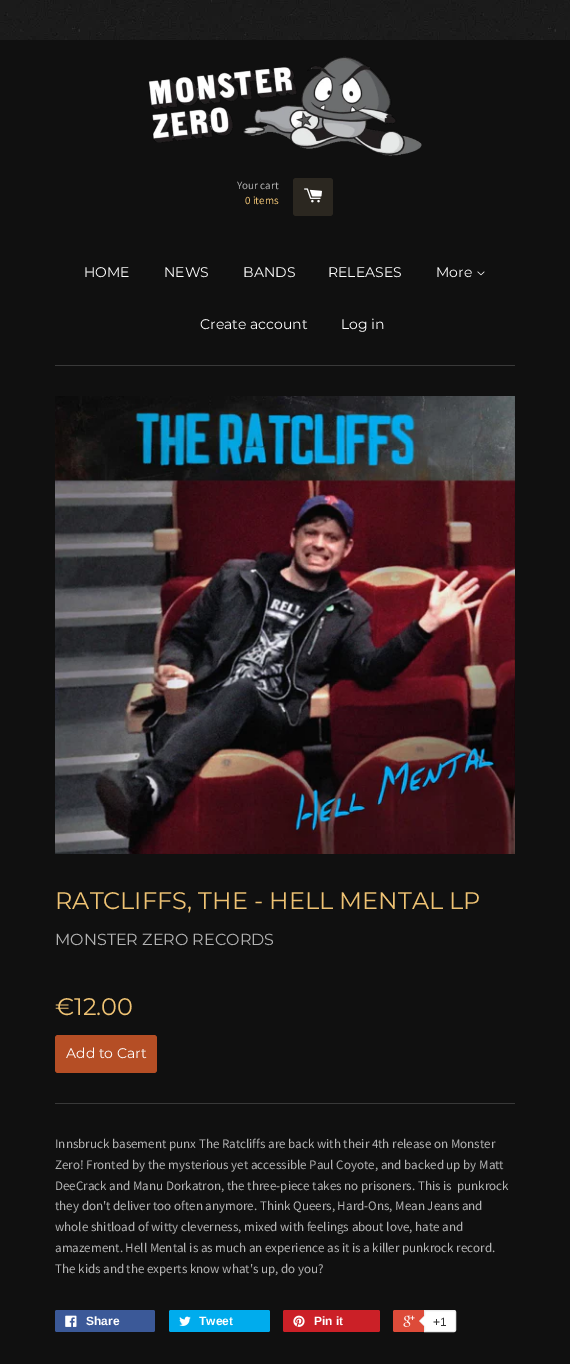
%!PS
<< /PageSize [570 1364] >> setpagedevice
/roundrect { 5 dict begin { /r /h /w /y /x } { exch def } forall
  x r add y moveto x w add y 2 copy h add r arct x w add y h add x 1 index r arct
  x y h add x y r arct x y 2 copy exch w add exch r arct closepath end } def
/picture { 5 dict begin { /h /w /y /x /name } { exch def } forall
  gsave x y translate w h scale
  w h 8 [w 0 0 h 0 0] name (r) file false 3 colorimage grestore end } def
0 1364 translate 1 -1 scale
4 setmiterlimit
1 setgray
0 0 570 1364 rectfill
(img1.rgb) 0 0 570 40 picture
0.063 setgray
0 40 570 1324 rectfill
(img2.rgb) 148 56 274 100 picture
/SourceSansPro-Regular [11 0 0 -11 0 0] selectfont
0.702 setgray
237 189 moveto (Your cart) show
0.937 0.765 0.455 setrgbcolor
245 204 moveto (0 items) show
0.169 0.153 0.125 setrgbcolor
293 178 40 38 3 roundrect fill
(img3.rgb) 304 188 18 15 picture
/Montserrat-Thin [14 0 0 -14 0 0] selectfont
1 setgray
84 277 moveto (HOME) show
164 277 moveto (NEWS) show
243 277 moveto (BANDS) show
328 277 moveto (RELEASES) show
436 277 moveto (More) show
(img4.rgb) 477 271 8 5 picture
200 329 moveto (Create account) show
341 329 moveto (Log in) show
0.224 setgray
55 365 460 1 rectfill
(img5.rgb) 55 396 460 458 picture
/Montserrat-Thin [24 0 0 -24 0 0] selectfont
0.937 0.765 0.455 setrgbcolor
55 909 moveto (RATCLIFFS, THE - HELL MENTAL LP) show
/Montserrat-Thin [16 0 0 -16 0 0] selectfont
0.702 setgray
55 945 moveto (MONSTER ZERO RECORDS) show
/Montserrat-Thin [24 0 0 -24 0 0] selectfont
0.937 0.765 0.455 setrgbcolor
55 1015 moveto (€12.00) show
0.71 0.306 0.145 setrgbcolor
55 1035 102 38 3 roundrect fill
/Montserrat-Thin [14 0 0 -14 0 0] selectfont
1 setgray
66 1058 moveto (Add to Cart) show
0.224 setgray
55 1103 460 1 rectfill
/SourceSansPro-Regular [13 0 0 -13 0 0] selectfont
0.702 setgray
55 1148 moveto (Innsbruck basement punx The Ratcliffs are back with their 4th release on Monster) show
55 1169 moveto (Zero! Fronted by the mysterious yet accessible Paul Coyote, and backed up by Matt) show
55 1190 moveto (DeeCrack and Manu Dorkatron, the three-piece takes no prisoners. This is  punkrock) show
55 1210 moveto (they don't deliver too often anymore. Think Queers, Hard-Ons, Mean Jeans and) show
55 1231 moveto (whole shitload of witty cleverness, mixed with feelings about love, hate and) show
55 1252 moveto (amazement. Hell Mental is as much an experience as it is a killer punkrock record.) show
55 1273 moveto (The kids and the experts know what's up, do you?) show
0.231 0.349 0.596 setrgbcolor
55 1310 100 22 2 roundrect fill
(img6.rgb) 65 1315 12 12 picture
/LiberationSans-Bold [12 0 0 -12 0 0] selectfont
1 setgray
86 1325 moveto (Share) show
0 0.675 0.929 setrgbcolor
169 1310 101 22 2 roundrect fill
(img7.rgb) 179 1316 12 10 picture
1 setgray
199 1325 moveto (Tweet) show
0.796 0.125 0.153 setrgbcolor
283 1310 97 22 2 roundrect fill
(img8.rgb) 293 1315 12 12 picture
1 setgray
314 1325 moveto (Pin it) show
0.867 0.294 0.224 setrgbcolor
393 1310 61 22 2 roundrect fill
(img9.rgb) 403 1315 12 12 picture
1 setgray
newpath 424.5 1310.5 moveto 454 1310.5 lineto 455 1310.5 455.5 1311 455.5 1312 curveto 455.5 1330 lineto 455.5 1331 455 1331.5 454 1331.5 curveto 424.5 1331.5 lineto closepath gsave fill grestore
0.925 setgray
stroke
newpath 425 1315 moveto 425 1327 lineto 419 1321 lineto closepath fill
1 setgray
newpath 426 1315 moveto 426 1327 lineto 420 1321 lineto closepath fill
/LiberationSans-Regular [12 0 0 -12 0 0] selectfont
0.2 setgray
433 1326 moveto (+1) show
showpage
